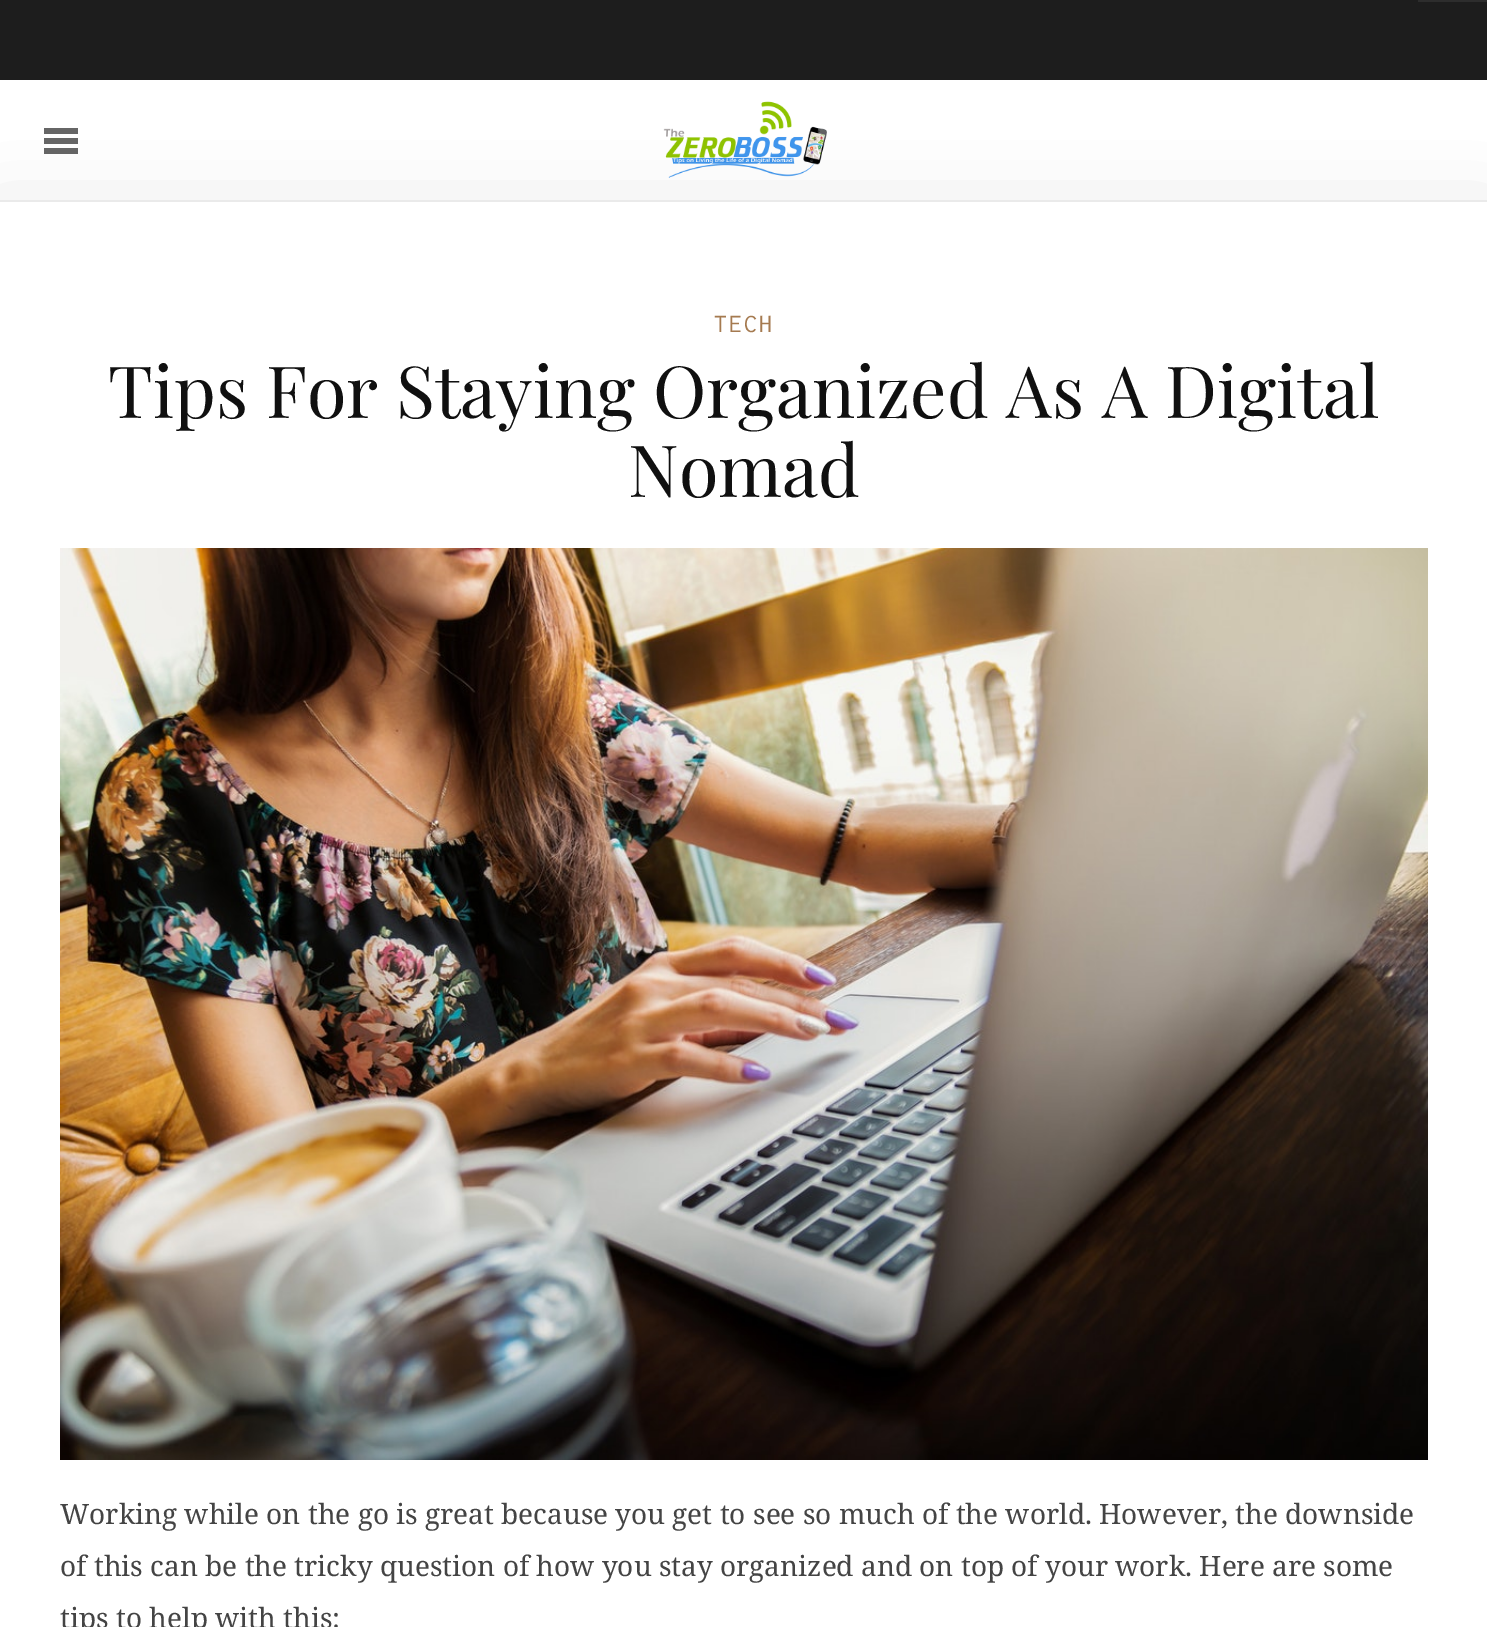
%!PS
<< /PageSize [1487 1627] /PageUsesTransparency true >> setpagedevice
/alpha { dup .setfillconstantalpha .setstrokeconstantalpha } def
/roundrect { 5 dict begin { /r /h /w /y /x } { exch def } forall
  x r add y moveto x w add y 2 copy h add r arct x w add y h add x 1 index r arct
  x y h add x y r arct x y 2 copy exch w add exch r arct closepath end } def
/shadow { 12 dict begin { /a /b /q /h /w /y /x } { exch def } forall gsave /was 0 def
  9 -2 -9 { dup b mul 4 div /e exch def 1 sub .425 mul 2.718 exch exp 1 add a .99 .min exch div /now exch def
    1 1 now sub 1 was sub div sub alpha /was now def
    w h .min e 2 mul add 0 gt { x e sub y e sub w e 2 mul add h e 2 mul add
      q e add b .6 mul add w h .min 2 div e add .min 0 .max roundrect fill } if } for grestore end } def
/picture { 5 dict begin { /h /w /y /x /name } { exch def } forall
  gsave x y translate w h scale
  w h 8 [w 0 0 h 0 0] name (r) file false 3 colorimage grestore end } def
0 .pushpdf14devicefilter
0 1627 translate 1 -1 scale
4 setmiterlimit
1 setgray
0 0 1487 1627 rectfill
0.114 setgray
0 0 1487 80 rectfill
0.176 setgray
1418 0 69 2 rectfill
0.4 setgray
44 138 34 6 rectfill
44 128 34 6 rectfill
44 148 34 6 rectfill
(img1.rgb) 663 101 164 77 picture
0 setgray
0 230 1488 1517 0 40 0.2 shadow
0.918 setgray
0 200 1487 2 rectfill
1 setgray
0 202 1487 1425 rectfill
/Inconsolata-Regular [26 0 0 -26 0 0] selectfont
0.647 0.478 0.314 setrgbcolor
714 332 moveto 2 0 (TECH) ashow
/PlayfairDisplay-Regular [72 0 0 -72 0 0] selectfont
0.063 setgray
108 418 moveto (Tips For Staying Organized As A Digital) show
628 497 moveto (Nomad) show
(img2.rgb) 60 548 1368 912 picture
/NotoSerif-Regular [28 0 0 -28 0 0] selectfont
0.267 setgray
60 1524 moveto (Working while on the go is great because you get to see so much of the world. However, the downside) show
60 1576 moveto (of this can be the tricky question of how you stay organized and on top of your work. Here are some) show
60 1628 moveto (tips to help with this:) show
.poppdf14devicefilter showpage
